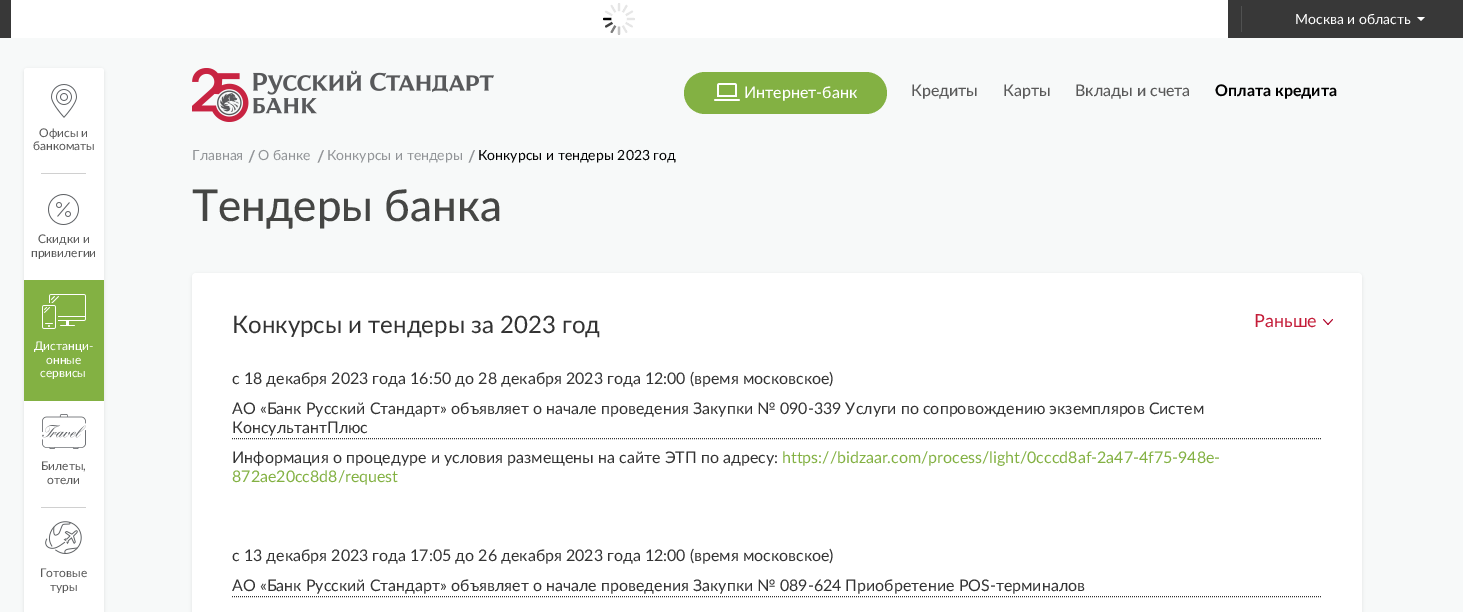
%!PS
<< /PageSize [1463 612] /PageUsesTransparency true >> setpagedevice
/alpha { dup .setfillconstantalpha .setstrokeconstantalpha } def
/roundrect { 5 dict begin { /r /h /w /y /x } { exch def } forall
  x r add y moveto x w add y 2 copy h add r arct x w add y h add x 1 index r arct
  x y h add x y r arct x y 2 copy exch w add exch r arct closepath end } def
/shadow { 12 dict begin { /a /b /q /h /w /y /x } { exch def } forall gsave /was 0 def
  9 -2 -9 { dup b mul 4 div /e exch def 1 sub .425 mul 2.718 exch exp 1 add a .99 .min exch div /now exch def
    1 1 now sub 1 was sub div sub alpha /was now def
    w h .min e 2 mul add 0 gt { x e sub y e sub w e 2 mul add h e 2 mul add
      q e add b .6 mul add w h .min 2 div e add .min 0 .max roundrect fill } if } for grestore end } def
/picture { 5 dict begin { /h /w /y /x /name } { exch def } forall
  gsave x y translate w h scale
  w h 8 [w 0 0 h 0 0] name (r) file false 3 colorimage grestore end } def
0 .pushpdf14devicefilter
0 612 translate 1 -1 scale
4 setmiterlimit
0.969 0.976 0.976 setrgbcolor
0 0 1463 612 rectfill
0.22 setgray
0 0 1463 38 rectfill
1 setgray
11 0 1217 38 rectfill
(img1.rgb) 603 3 32 32 picture
0.314 0.318 0.318 setrgbcolor
1241 6 1 26 rectfill
/Lato-Regular [14 0 0 -14 0 0] selectfont
1 setgray
1295 24 moveto (Москва и область) show
newpath 1417 17 moveto 1425 17 lineto 1421 21 lineto closepath fill
0 setgray
24 69 80 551 3 1.5 0.09 shadow
1 setgray
24 68 80 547 3 roundrect fill
(img2.rgb) 51 84 26 34 picture
/Lato-Regular [12 0 0 -12 0 0] selectfont
0.349 setgray
39 137 moveto (Офисы и) show
33 150 moveto (банкоматы) show
0.816 setgray
41 173 45 1 rectfill
(img3.rgb) 48 194 31 31 picture
0.349 setgray
38 243 moveto (Скидки и) show
31 257 moveto (привилегии) show
0.514 0.694 0.263 setrgbcolor
24 280 80 121 rectfill
(img4.rgb) 42 294 44 35 picture
1 setgray
34 350 moveto (Дистанци-) show
46 364 moveto (онные) show
40 377 moveto (сервисы) show
(img5.rgb) 42 414 44 35 picture
0.349 setgray
41 470 moveto (Билеты,) show
47 484 moveto (отели) show
0.816 setgray
41 507 45 1 rectfill
(img6.rgb) 45 521 37 33 picture
0.349 setgray
40 577 moveto (Готовые) show
50 591 moveto (туры) show
(img7.rgb) 192 68 302 54 picture
0.514 0.694 0.263 setrgbcolor
684 72 203 42 21 roundrect fill
(img8.rgb) 714 83 26 18 picture
/Lato-Medium [16 0 0 -16 0 0] selectfont
1 setgray
744 98 moveto (Интернет-банк) show
0.349 setgray
911 96 moveto (Кредиты) show
1003 96 moveto (Карты) show
1075 96 moveto (Вклады и счета) show
/Lato-Bold [16 0 0 -16 0 0] selectfont
0 setgray
1215 96 moveto (Оплата кредита) show
/Lato-Regular [14 0 0 -14 0 0] selectfont
0.569 0.58 0.592 setrgbcolor
192 160 moveto (Главная) show
/Lato-Bold [16 0 0 -16 0 0] selectfont
248 162 moveto (/) show
/Lato-Regular [14 0 0 -14 0 0] selectfont
258 160 moveto (О банке) show
/Lato-Bold [16 0 0 -16 0 0] selectfont
317 162 moveto (/) show
/Lato-Regular [14 0 0 -14 0 0] selectfont
327 160 moveto (Конкурсы и тендеры) show
/Lato-Bold [16 0 0 -16 0 0] selectfont
468 162 moveto (/) show
/Lato-Regular [14 0 0 -14 0 0] selectfont
0 setgray
478 160 moveto (Конкурсы и тендеры 2023 год) show
/Lato-Medium [44 0 0 -44 0 0] selectfont
0.271 0.275 0.267 setrgbcolor
192 221 moveto (Тендеры банка) show
0.098 0.118 0.118 setrgbcolor
192 274 1170 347 4 1.5 0.08 shadow
1 setgray
192 273 1170 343 4 roundrect fill
/Lato-Regular [24 0 0 -24 0 0] selectfont
0.2 setgray
232 333 moveto (Конкурсы и тендеры за 2023 год) show
/Lato-Regular [18 0 0 -18 0 0] selectfont
0.769 0.114 0.224 setrgbcolor
1254 327 moveto (Раньше) show
(img9.rgb) 1323 319 10 6 picture
/Lato-Regular [16 0 0 -16 0 0] selectfont
0.2 setgray
232 384 moveto (с 18 декабря 2023 года 16:50 до 28 декабря 2023 года 12:00 \(время московское\)) show
[1 1] 0 setdash
newpath 232 438.5 moveto 1322 438.5 lineto stroke
232 414 moveto (АО «Банк Русский Стандарт» объявляет о начале проведения Закупки № 090-339 Услуги по сопровождению экземпляров Систем) show
232 433 moveto (КонсультантПлюс) show
232 463 moveto (Информация о процедуре и условия размещены на сайте ЭТП по адресу:) show
0.514 0.694 0.263 setrgbcolor
782 463 moveto (https://bidzaar.com/process/light/0cccd8af-2a47-4f75-948e-) show
232 482 moveto (872ae20cc8d8/request) show
0.2 setgray
232 561 moveto (с 13 декабря 2023 года 17:05 до 26 декабря 2023 года 12:00 \(время московское\)) show
newpath 232 596.5 moveto 1322 596.5 lineto stroke
232 591 moveto (АО «Банк Русский Стандарт» объявляет о начале проведения Закупки № 089-624 Приобретение POS-терминалов) show
.poppdf14devicefilter showpage
